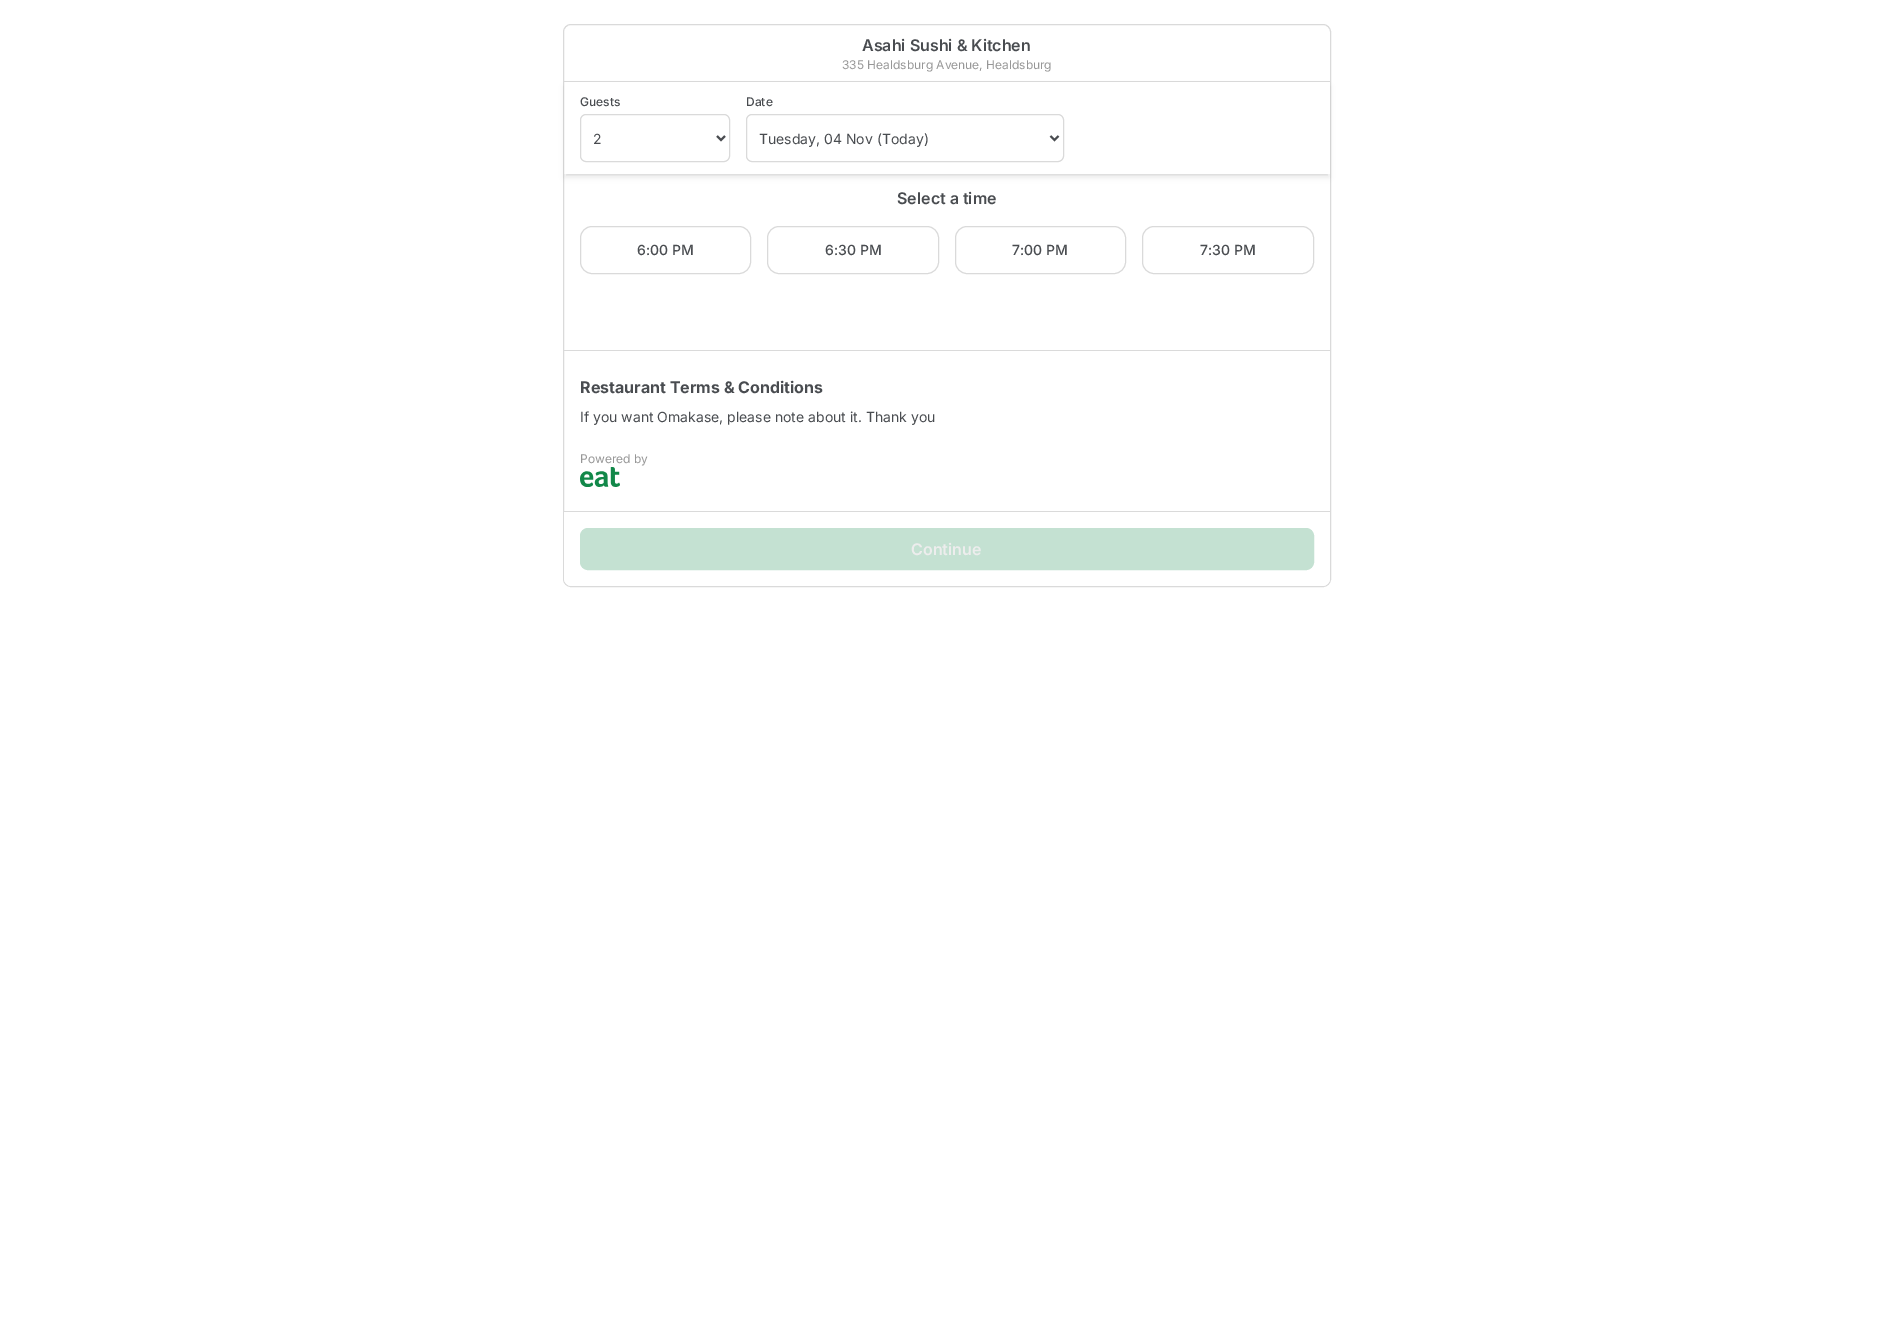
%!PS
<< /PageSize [1893 1317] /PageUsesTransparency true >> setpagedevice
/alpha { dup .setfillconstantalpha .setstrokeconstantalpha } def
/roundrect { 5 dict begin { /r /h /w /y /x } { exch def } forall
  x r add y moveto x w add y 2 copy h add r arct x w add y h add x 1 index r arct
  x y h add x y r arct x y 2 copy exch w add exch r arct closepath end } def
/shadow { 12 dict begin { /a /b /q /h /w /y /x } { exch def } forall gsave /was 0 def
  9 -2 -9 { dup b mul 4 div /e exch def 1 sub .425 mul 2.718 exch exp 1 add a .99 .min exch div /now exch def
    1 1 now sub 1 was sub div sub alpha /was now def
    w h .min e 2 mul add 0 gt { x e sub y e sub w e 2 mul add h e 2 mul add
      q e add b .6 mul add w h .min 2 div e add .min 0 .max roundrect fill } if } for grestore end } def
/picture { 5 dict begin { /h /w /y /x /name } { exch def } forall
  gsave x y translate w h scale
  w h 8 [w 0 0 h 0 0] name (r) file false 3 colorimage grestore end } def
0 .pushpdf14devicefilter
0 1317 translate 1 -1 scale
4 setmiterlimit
1 setgray
0 0 1893 1317 rectfill
0.855 setgray
563.5 24.5 767 562 7.5 roundrect stroke
/Inter-SemiBold [16 0 0 -16 0 0] selectfont
0.286 0.298 0.314 setrgbcolor
862 51 moveto (Asahi Sushi & Kitchen) show
/Inter-Regular [12 0 0 -12 0 0] selectfont
0.592 setgray
842 69 moveto (335 Healdsburg Avenue, Healdsburg) show
0.855 setgray
564 81 766 1 rectfill
gsave
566 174 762 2 rectclip
0 setgray
566 86 762 88 0 2 0.1 shadow
grestore
gsave
newpath 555 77 moveto 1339 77 lineto 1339 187 lineto 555 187 lineto closepath 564 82 moveto 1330 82 lineto 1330 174 lineto 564 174 lineto closepath eoclip newpath
0 setgray
565 87 764 90 0 3 0.1 shadow
grestore
/Inter-Medium [12 0 0 -12 0 0] selectfont
0.286 0.298 0.314 setrgbcolor
580 106 moveto (Guests) show
0.855 setgray
580.5 114.5 149 47 5.5 roundrect stroke
0.286 0.298 0.314 setrgbcolor
2 setlinewidth
newpath 717 136 moveto 721 140 lineto 725 136 lineto stroke
/Inter-Regular [14 0 0 -14 0 0] selectfont
593 144 moveto (2) show
/Inter-Medium [12 0 0 -12 0 0] selectfont
746 106 moveto (Date) show
0.855 setgray
1 setlinewidth
746.5 114.5 317 47 5.5 roundrect stroke
0.286 0.298 0.314 setrgbcolor
2 setlinewidth
newpath 1050.5 136 moveto 1054.5 140 lineto 1058.5 136 lineto stroke
/Inter-Regular [14 0 0 -14 0 0] selectfont
759 144 moveto (Tuesday, 04 Nov \(Today\)) show
0.855 setgray
564 350 766 1 rectfill
/Inter-SemiBold [16 0 0 -16 0 0] selectfont
0.286 0.298 0.314 setrgbcolor
897 204 moveto (Select a time) show
0.855 setgray
1 setlinewidth
580.5 226.5 170 47 11.5 roundrect stroke
/Inter-Medium [14 0 0 -14 0 0] selectfont
0.286 0.298 0.314 setrgbcolor
637 255 moveto (6:00 PM) show
0.855 setgray
767.5 226.5 171 47 11.5 roundrect stroke
0.286 0.298 0.314 setrgbcolor
825 255 moveto (6:30 PM) show
0.855 setgray
955.5 226.5 170 47 11.5 roundrect stroke
0.286 0.298 0.314 setrgbcolor
1012 255 moveto (7:00 PM) show
0.855 setgray
1142.5 226.5 171 47 11.5 roundrect stroke
0.286 0.298 0.314 setrgbcolor
1200 255 moveto (7:30 PM) show
/Inter-Bold [16 0 0 -16 0 0] selectfont
580 393 moveto (Restaurant Terms & Conditions) show
/Inter-Regular [14 0 0 -14 0 0] selectfont
580 422 moveto (If you want Omakase, please note about it. Thank you) show
/Inter-Regular [12 0 0 -12 0 0] selectfont
0.592 setgray
580 463 moveto (Powered by) show
(img1.rgb) 580 467 40 20 picture
0.855 setgray
564 511 766 1 rectfill
1 setgray
newpath 564 512 moveto 1330 512 lineto 1330 578 lineto 1330 582.5 1326.5 586 1322 586 curveto 572 586 lineto 567.5 586 564 582.5 564 578 curveto closepath fill
0.769 0.882 0.824 setrgbcolor
580.5 528.5 733 41 7.5 roundrect gsave fill grestore
stroke
/Inter-SemiBold [16 0 0 -16 0 0] selectfont
0.929 setgray
911 555 moveto (Continue) show
.poppdf14devicefilter showpage
